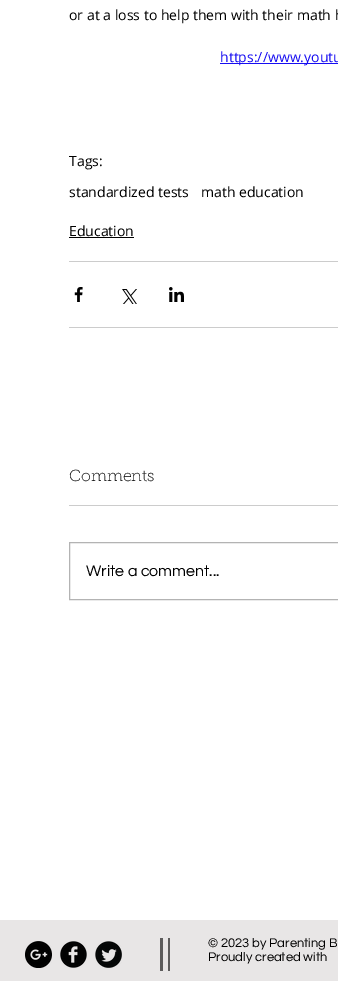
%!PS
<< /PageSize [338 981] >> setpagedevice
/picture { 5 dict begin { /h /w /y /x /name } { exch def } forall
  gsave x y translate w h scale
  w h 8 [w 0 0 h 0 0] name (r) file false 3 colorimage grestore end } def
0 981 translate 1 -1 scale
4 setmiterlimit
0.91 0.902 0.902 setrgbcolor
0 0 338 981 rectfill
1 setgray
0 0 338 920 rectfill
/OpenSans-Regular [14 0 0 -14 0 0] selectfont
0 setgray
69 20 moveto (or at a loss to help them with their math h) show
0.09 0.051 0.949 setrgbcolor
220 63 118 1 rectfill
220 62 moveto (https://www.youtu) show
0 setgray
69 166 moveto (Tags:) show
69 197 moveto (standardized tests) show
201 197 moveto (math education) show
69 236 moveto (Education) show
69 237 65 1 rectfill
0.8 setgray
69 261 269 1 rectfill
(img1.rgb) 74 287 9 15 picture
(img2.rgb) 122 289 15 15 picture
(img3.rgb) 169 287 15 15 picture
69 327 269 1 rectfill
/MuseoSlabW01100-Thin [16 0 0 -16 0 0] selectfont
0 setgray
69 481 moveto (Comments) show
0.8 setgray
69 505 269 1 rectfill
0.702 setgray
69.5 542.5 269 57 rectstroke
/Questrial-Regular [16 0 0 -16 0 0] selectfont
0 setgray
86 576 moveto (Write a comment...) show
(img4.rgb) 25 941 27 27 picture
(img5.rgb) 60 941 27 27 picture
(img6.rgb) 95 941 27 27 picture
0.365 0.361 0.361 setrgbcolor
168 938 2 33 rectfill
160 938 3 33 rectfill
/Questrial-Regular [13 0 0 -13 0 0] selectfont
0 setgray
208 947 moveto (© 2023 by Parenting B) show
208 961 moveto (Proudly created with) show
showpage
